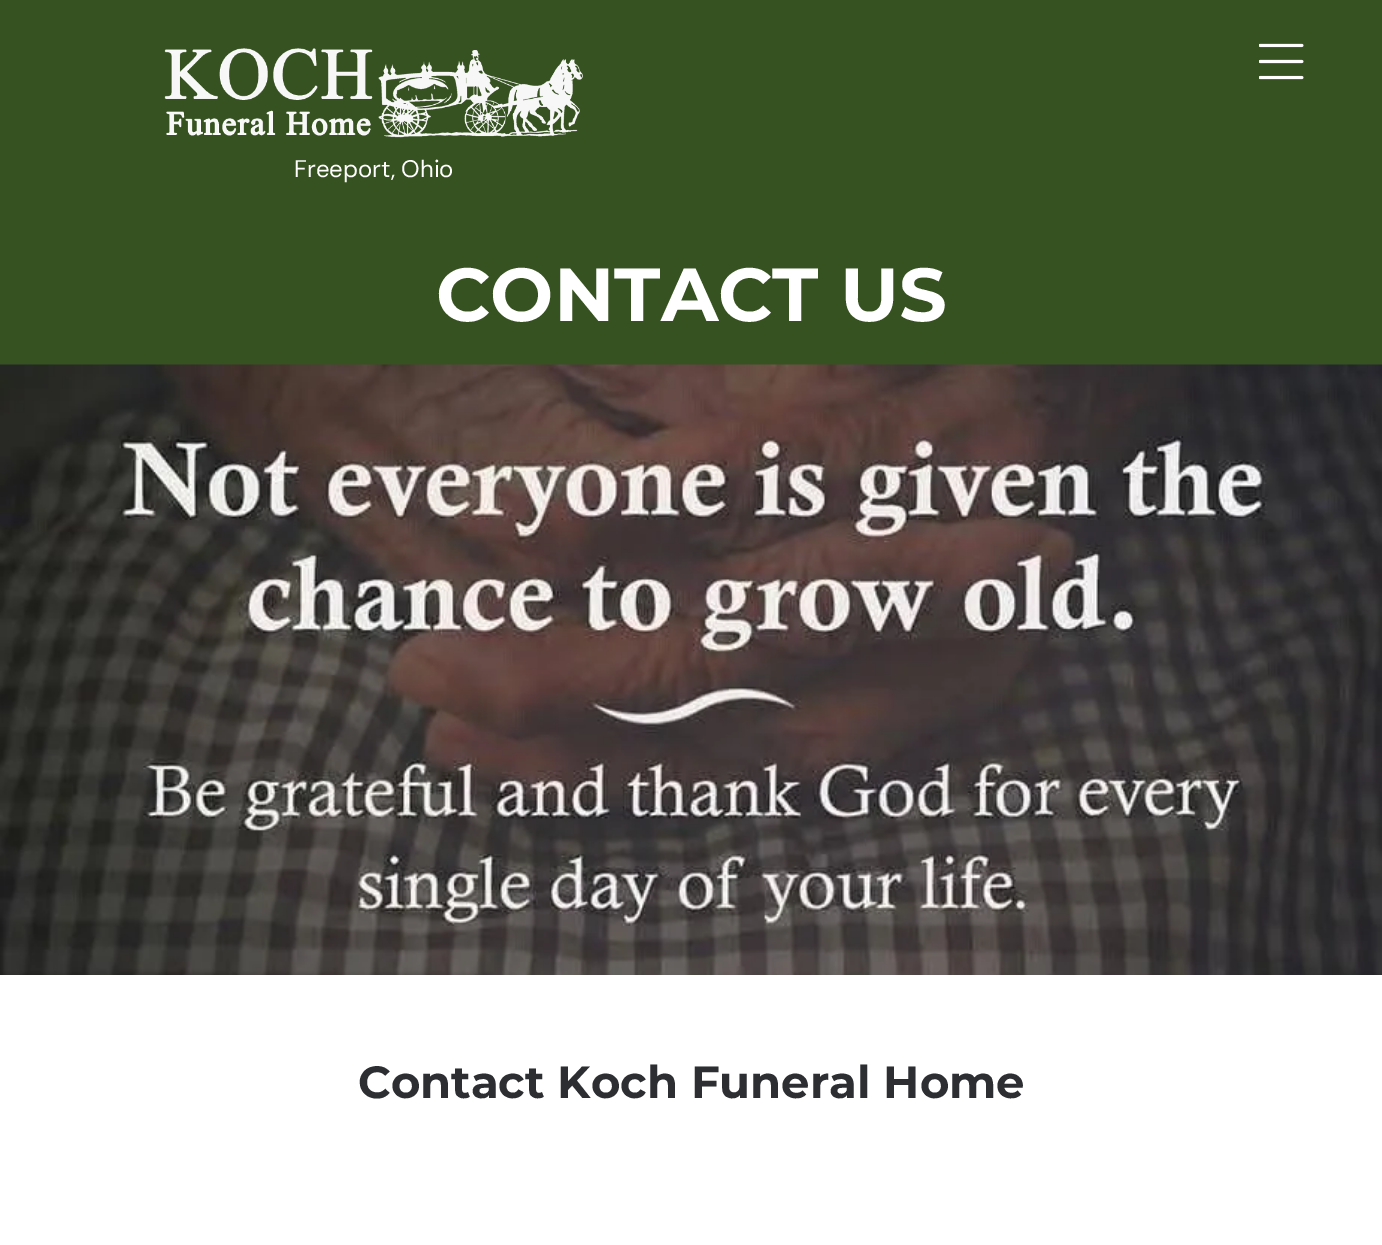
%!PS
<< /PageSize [1382 1245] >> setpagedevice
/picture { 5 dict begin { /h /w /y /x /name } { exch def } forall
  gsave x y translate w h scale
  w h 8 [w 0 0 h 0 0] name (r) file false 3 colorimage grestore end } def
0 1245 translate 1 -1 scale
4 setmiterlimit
1 setgray
0 0 1382 1245 rectfill
0.212 0.322 0.129 setrgbcolor
0 0 1382 365 rectfill
(img1.rgb) 1259 43 45 37 picture
(img2.rgb) 164 48 419 90 picture
/DMSans-Regular [24 0 0 -24 0 0] selectfont
1 setgray
294 177 moveto (Freeport, Ohio) show
/Montserrat-Bold [75 0 0 -75 0 0] selectfont
436 321 moveto (CONTACT US) show
(img3.rgb) 0 364 1382 611 picture
/Montserrat-Bold [45 0 0 -45 0 0] selectfont
0.176 0.18 0.196 setrgbcolor
358 1098 moveto (Contact Koch Funeral Home) show
showpage
